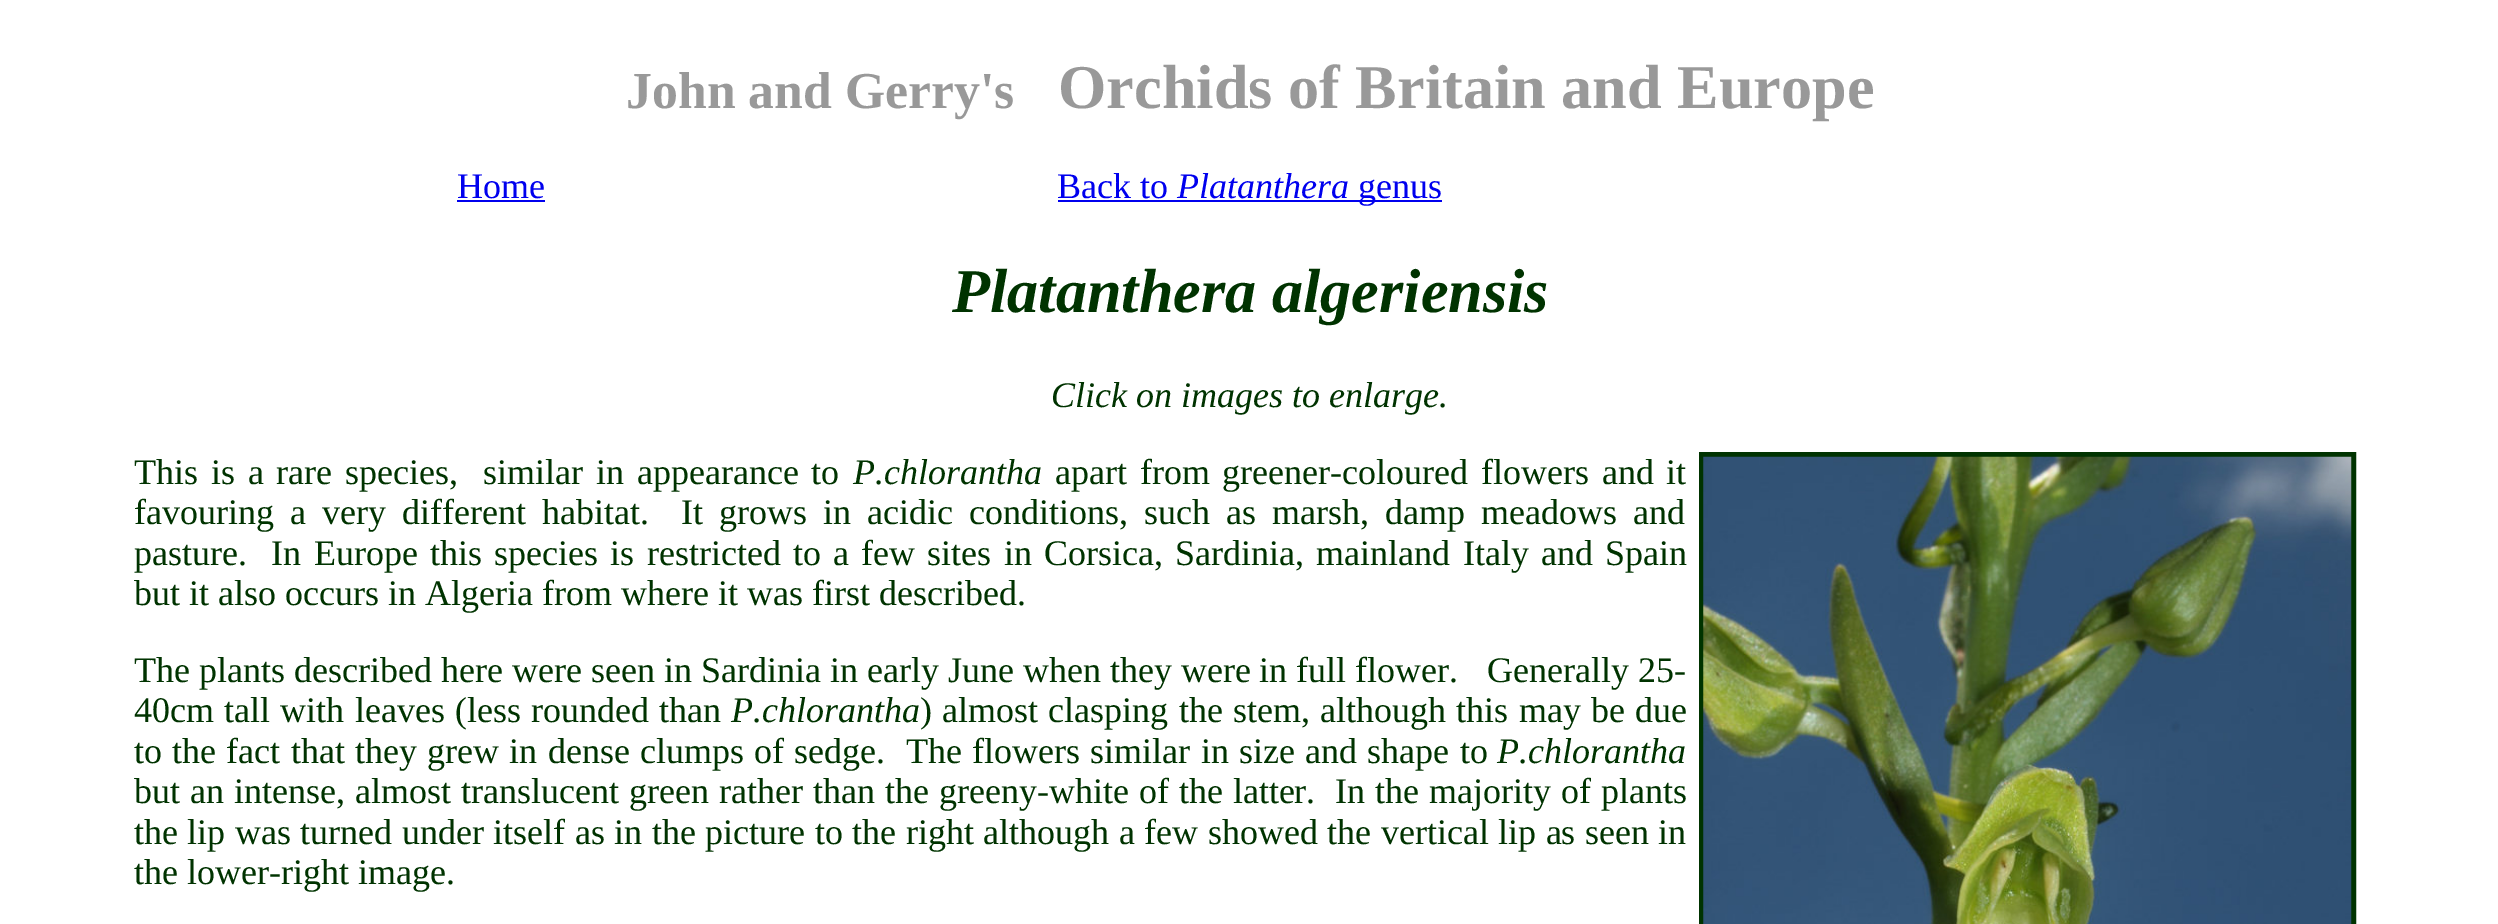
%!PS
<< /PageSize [2498 924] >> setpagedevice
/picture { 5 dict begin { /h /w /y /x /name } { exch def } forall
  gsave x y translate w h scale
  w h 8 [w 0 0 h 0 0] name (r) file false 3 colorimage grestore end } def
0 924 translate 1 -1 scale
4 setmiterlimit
1 setgray
0 0 2498 924 rectfill
/LiberationSerif-Bold [51.75 0 0 -51.75 0 0] selectfont
0.6 setgray
626 108 moveto (John and Gerry's) show
/LiberationSerif-Bold [62.25 0 0 -62.25 0 0] selectfont
1058 108 moveto (Orchids of Britain and Europe) show
/LiberationSerif-Regular [36 0 0 -36 0 0] selectfont
0 0 0.933 setrgbcolor
457 198 moveto (Home) show
457 200 88 2 rectfill
1057 198 moveto (Back to) show
/LiberationSerif-Italic [36 0 0 -36 0 0] selectfont
1177 198 moveto (Platanthera) show
1058 200 384 2 rectfill
/LiberationSerif-Regular [36 0 0 -36 0 0] selectfont
1358 198 moveto (genus) show
/LiberationSerif-BoldItalic [62.25 0 0 -62.25 0 0] selectfont
0 0.2 0 setrgbcolor
952 312 moveto (Platanthera algeriensis) show
/LiberationSerif-Italic [36 0 0 -36 0 0] selectfont
1051 407 moveto (Click on images to enlarge.) show
/LiberationSerif-Regular [36 0 0 -36 0 0] selectfont
134 484 moveto 3.75 0 32 (This is a rare species,  similar in appearance to) widthshow
/LiberationSerif-Italic [36 0 0 -36 0 0] selectfont
853 484 moveto (P.chlorantha) show
/LiberationSerif-Regular [36 0 0 -36 0 0] selectfont
1055 484 moveto 3.75 0 32 (apart from greener-coloured flowers and it) widthshow
5 setlinewidth
1701.5 454.5 652 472 rectstroke
(img1.rgb) 1703 456 649 468 picture
134 524 moveto 7 0 32 (favouring a very different habitat.) widthshow
681 524 moveto 7 0 32 (It grows in acidic conditions, such as marsh, damp meadows and) widthshow
134 565 moveto 3.25 0 32 (pasture.  In Europe this species is restricted to a few sites in Corsica, Sardinia, mainland Italy and Spain) widthshow
134 605 moveto (but it also occurs in Algeria from where it was first described.) show
134 682 moveto (The plants described here were seen in Sardinia in early June when they were in full flower.) show
1487 682 moveto (Generally 25-) show
134 722 moveto 1.25 0 32 (40cm tall with leaves \(less rounded than) widthshow
/LiberationSerif-Italic [36 0 0 -36 0 0] selectfont
731 722 moveto (P.chlorantha) show
/LiberationSerif-Regular [36 0 0 -36 0 0] selectfont
920 722 moveto 1.25 0 32 (\) almost clasping the stem, although this may be due) widthshow
134 763 moveto 1.25 0 32 (to the fact that they grew in dense clumps of sedge.) widthshow
906 763 moveto 1.25 0 32 (The flowers similar in size and shape to) widthshow
/LiberationSerif-Italic [36 0 0 -36 0 0] selectfont
1497 763 moveto (P.chlorantha) show
/LiberationSerif-Regular [36 0 0 -36 0 0] selectfont
134 803 moveto 1 0 32 (but an intense, almost translucent green rather than the greeny-white of the latter.  In the majority of plants) widthshow
134 844 moveto 0.5 0 32 (the lip was turned under itself as in the picture to the right although a few showed the vertical lip as seen in) widthshow
134 884 moveto (the lower-right image.) show
showpage
